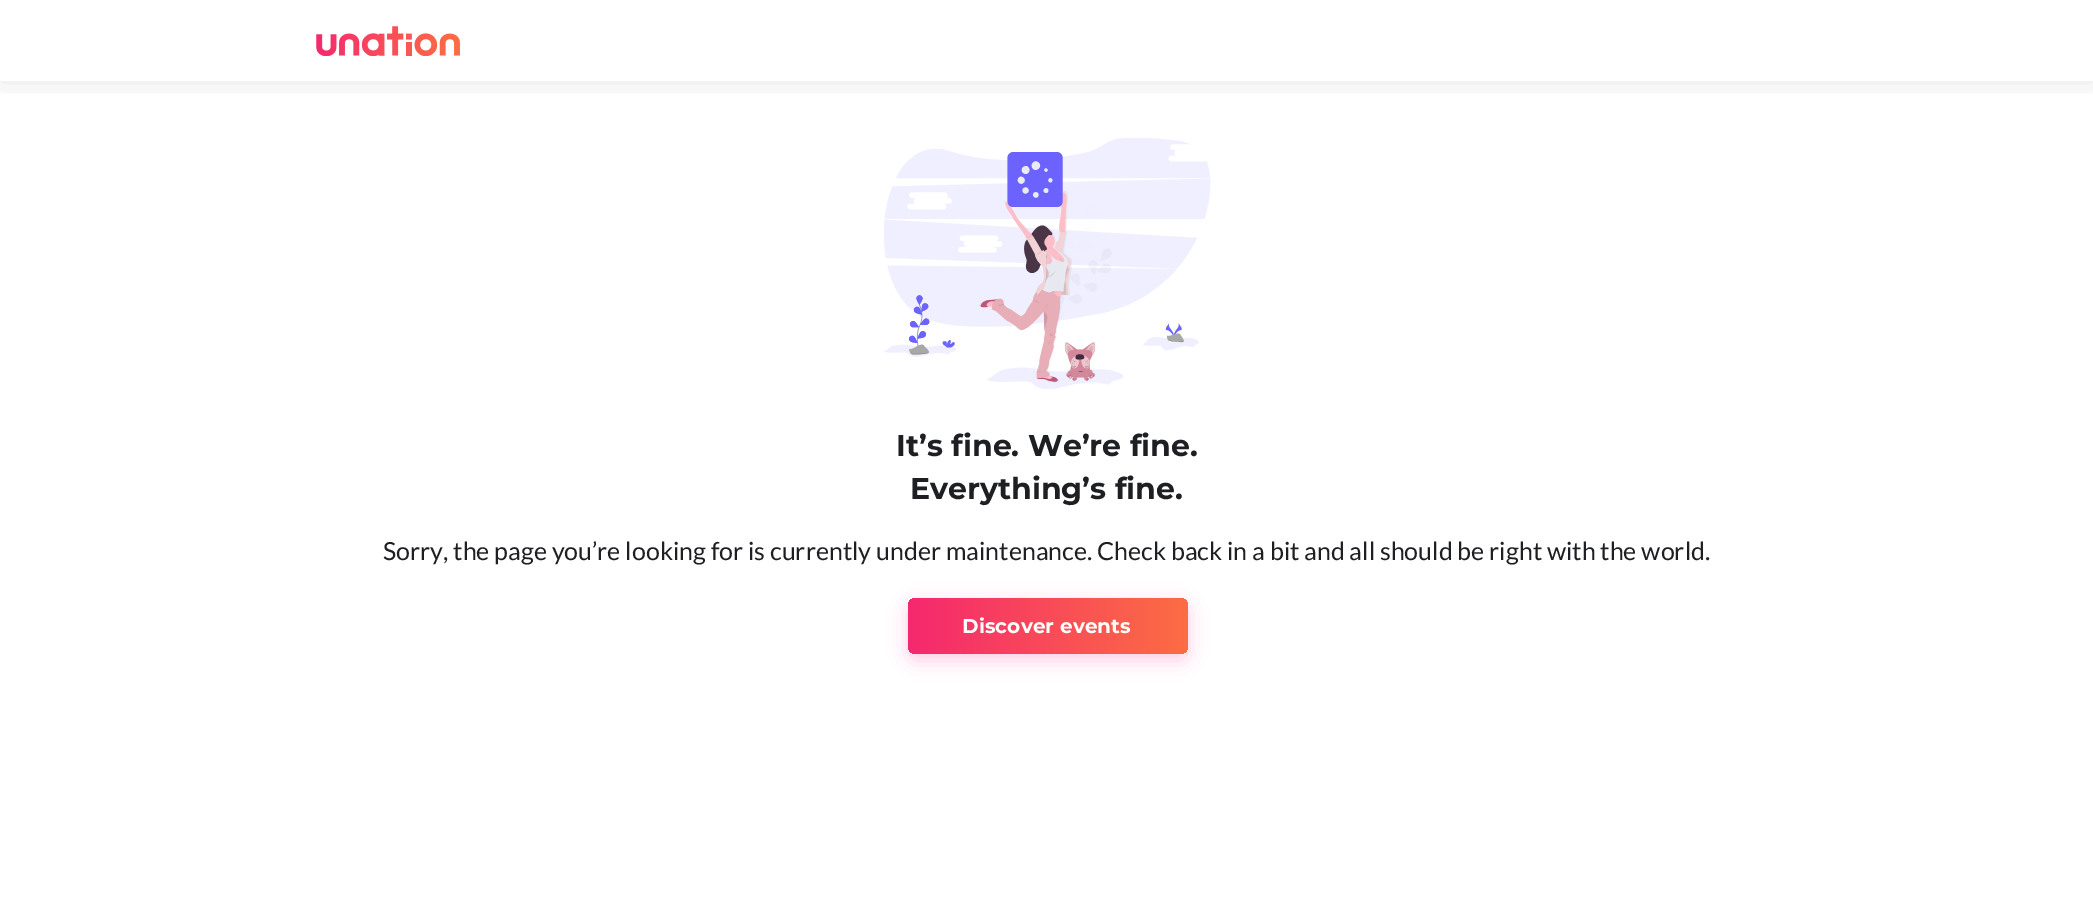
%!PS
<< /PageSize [2093 904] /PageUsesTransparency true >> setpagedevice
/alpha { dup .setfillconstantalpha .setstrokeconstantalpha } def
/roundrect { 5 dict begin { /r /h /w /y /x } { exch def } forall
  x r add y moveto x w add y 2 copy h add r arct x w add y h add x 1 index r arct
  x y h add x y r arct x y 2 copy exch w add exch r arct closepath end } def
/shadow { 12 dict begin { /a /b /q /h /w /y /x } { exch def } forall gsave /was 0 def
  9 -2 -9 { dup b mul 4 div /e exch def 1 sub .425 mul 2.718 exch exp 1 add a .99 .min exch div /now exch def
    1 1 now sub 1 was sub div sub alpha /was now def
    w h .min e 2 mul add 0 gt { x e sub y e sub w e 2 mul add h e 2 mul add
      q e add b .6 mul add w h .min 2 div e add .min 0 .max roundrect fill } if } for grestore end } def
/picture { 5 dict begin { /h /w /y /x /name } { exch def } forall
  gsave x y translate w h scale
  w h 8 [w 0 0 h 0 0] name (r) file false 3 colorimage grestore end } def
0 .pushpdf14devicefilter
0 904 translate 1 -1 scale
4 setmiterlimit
1 setgray
0 0 2093 904 rectfill
gsave
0 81 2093 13 rectclip
0 setgray
0 0 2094 81 0 15.5 0.1 shadow
grestore
(img1.rgb) 316 26 144 30 picture
(img2.rgb) 884 138 327 251 picture
/Montserrat-Thin [30 0 0 -30 0 0] selectfont
0.118 0.122 0.133 setrgbcolor
896 456 moveto (It’s fine. We’re fine.) show
910 499 moveto (Everything’s fine.) show
/Lato-Regular [25 0 0 -25 0 0] selectfont
383 560 moveto (Sorry, the page you’re looking for is currently under maintenance. Check back in a bit and all should be right with the world.) show
1 0 0.541 setrgbcolor
908 604 280 56 8 9.5 0.2 shadow
gsave 908 598 280 56 8 roundrect clip newpath
<< /ShadingType 2 /ColorSpace /DeviceRGB /Coords [908 626 1188 626] /Extend [true true] /Function << /FunctionType 2 /Domain [0 1] /C0 [0.961 0.157 0.431] /C1 [0.988 0.427 0.263] /N 1 >> >> shfill grestore
/Montserrat-Thin [20 0 0 -20 0 0] selectfont
1 setgray
962 633 moveto 0.1 0 (Discover events) ashow
.poppdf14devicefilter showpage
